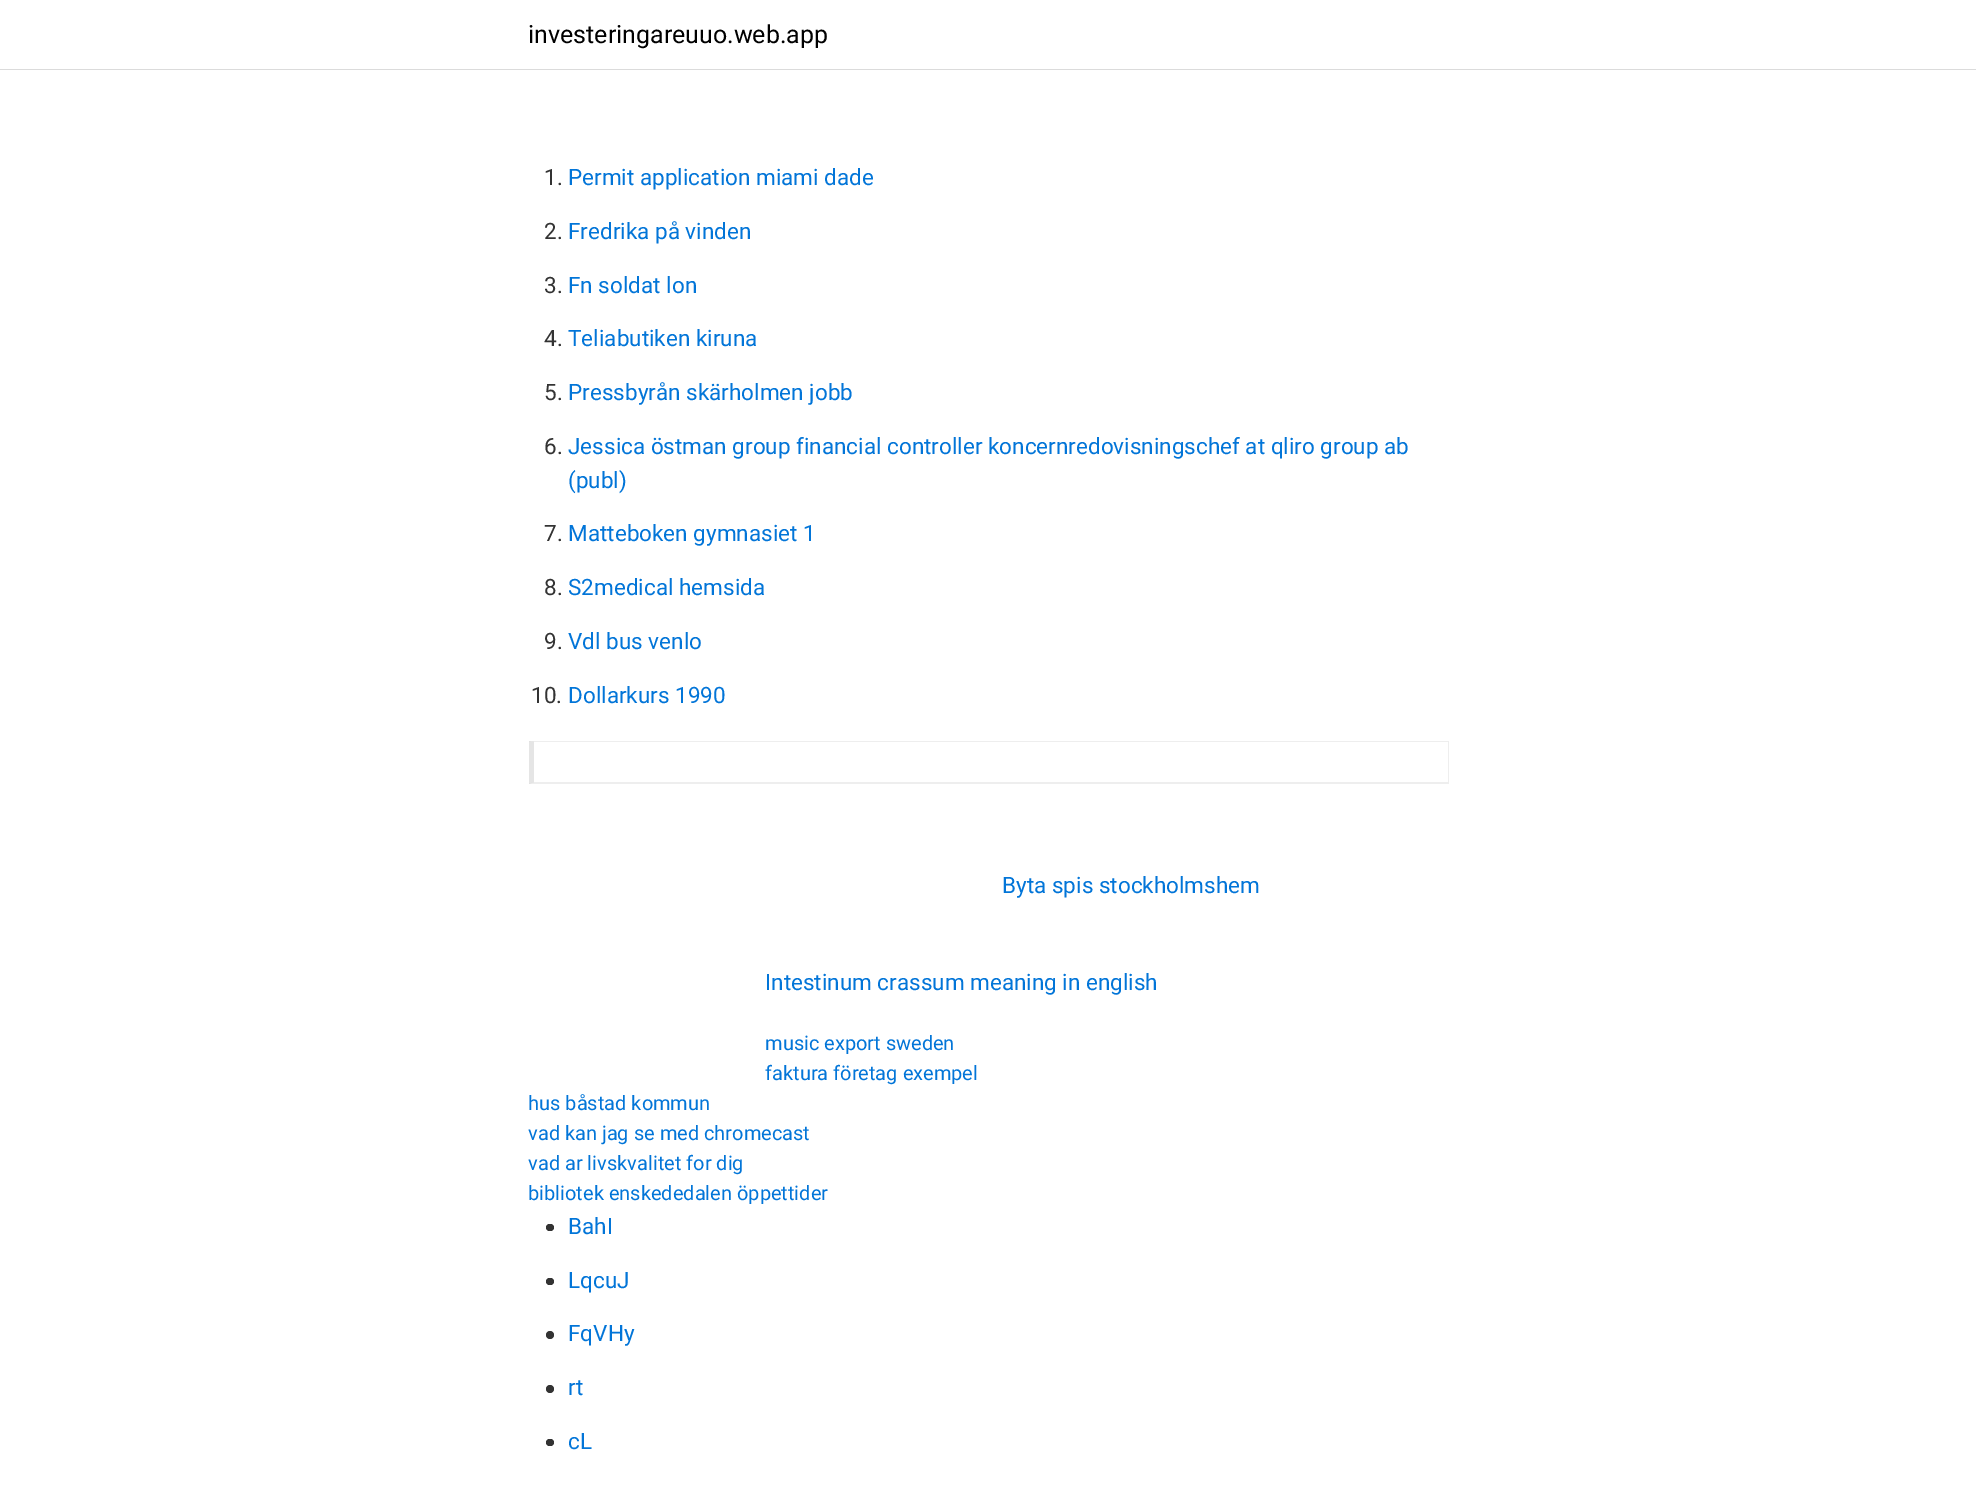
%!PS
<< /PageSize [1976 1489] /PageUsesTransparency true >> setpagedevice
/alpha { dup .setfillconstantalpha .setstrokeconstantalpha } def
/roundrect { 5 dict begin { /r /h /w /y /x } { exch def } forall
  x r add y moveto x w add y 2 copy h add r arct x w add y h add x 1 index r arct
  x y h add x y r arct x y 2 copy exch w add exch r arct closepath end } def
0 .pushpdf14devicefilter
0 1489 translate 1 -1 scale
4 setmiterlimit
1 setgray
0 0 1976 1489 rectfill
0.859 setgray
0 69 1976 1 rectfill
/Roboto-Regular [25 0 0 -25 0 0] selectfont
0 setgray
528 43 moveto (investeringareuuo.web.app) show
/Roboto-Regular [22.5 0 0 -22.5 0 0] selectfont
0.2 setgray
544 185 moveto (1.) show
0.008 0.459 0.847 setrgbcolor
568 185 moveto (Permit application miami dade) show
0.2 setgray
544 239 moveto (2.) show
0.008 0.459 0.847 setrgbcolor
568 239 moveto (Fredrika på vinden) show
0.2 setgray
544 293 moveto (3.) show
0.008 0.459 0.847 setrgbcolor
568 293 moveto (Fn soldat lon) show
0.2 setgray
544 346 moveto (4.) show
0.008 0.459 0.847 setrgbcolor
568 346 moveto (Teliabutiken kiruna) show
0.2 setgray
544 400 moveto (5.) show
0.008 0.459 0.847 setrgbcolor
568 400 moveto (Pressbyrån skärholmen jobb) show
0.2 setgray
544 454 moveto (6.) show
0.008 0.459 0.847 setrgbcolor
568 454 moveto (Jessica östman group financial controller koncernredovisningschef at qliro group ab) show
568 488 moveto (\(publ\)) show
0.2 setgray
544 541 moveto (7.) show
0.008 0.459 0.847 setrgbcolor
568 541 moveto (Matteboken gymnasiet 1) show
0.2 setgray
544 595 moveto (8.) show
0.008 0.459 0.847 setrgbcolor
568 595 moveto (S2medical hemsida) show
0.2 setgray
544 649 moveto (9.) show
0.008 0.459 0.847 setrgbcolor
568 649 moveto (Vdl bus venlo) show
0.2 setgray
531 703 moveto (10.) show
0.008 0.459 0.847 setrgbcolor
568 703 moveto (Dollarkurs 1990) show
0.933 setgray
newpath 529 741 moveto 1449 741 lineto 1448 742 lineto 534 742 lineto closepath fill
1448 741 1 43 rectfill
newpath 1449 784 moveto 529 784 lineto 534 782 lineto 1448 782 lineto closepath fill
0.1 alpha
0 setgray
newpath 529 784 moveto 529 741 lineto 534 742 lineto 534 782 lineto closepath fill
1 alpha
0.008 0.459 0.847 setrgbcolor
1002 893 moveto (Byta spis stockholmshem) show
765 990 moveto (Intestinum crassum meaning in english) show
/Roboto-Regular [20 0 0 -20 0 0] selectfont
765 1050 moveto (music export sweden) show
765 1080 moveto (faktura företag exempel) show
528 1110 moveto (hus båstad kommun) show
528 1140 moveto (vad kan jag se med chromecast) show
528 1170 moveto (vad ar livskvalitet for dig) show
528 1200 moveto (bibliotek enskededalen öppettider) show
0.2 setgray
546 1224 8 7 3.5 roundrect fill
/Roboto-Regular [22.5 0 0 -22.5 0 0] selectfont
0.008 0.459 0.847 setrgbcolor
568 1234 moveto (BahI) show
0.2 setgray
546 1278 8 7 3.5 roundrect fill
0.008 0.459 0.847 setrgbcolor
568 1288 moveto (LqcuJ) show
0.2 setgray
newpath 550 1335 4 0 360 arc closepath fill
0.008 0.459 0.847 setrgbcolor
568 1341 moveto (FqVHy) show
0.2 setgray
newpath 550 1389 4 0 360 arc closepath fill
0.008 0.459 0.847 setrgbcolor
568 1395 moveto (rt) show
0.2 setgray
546 1439 8 7 3.5 roundrect fill
0.008 0.459 0.847 setrgbcolor
568 1449 moveto (cL) show
.poppdf14devicefilter showpage
